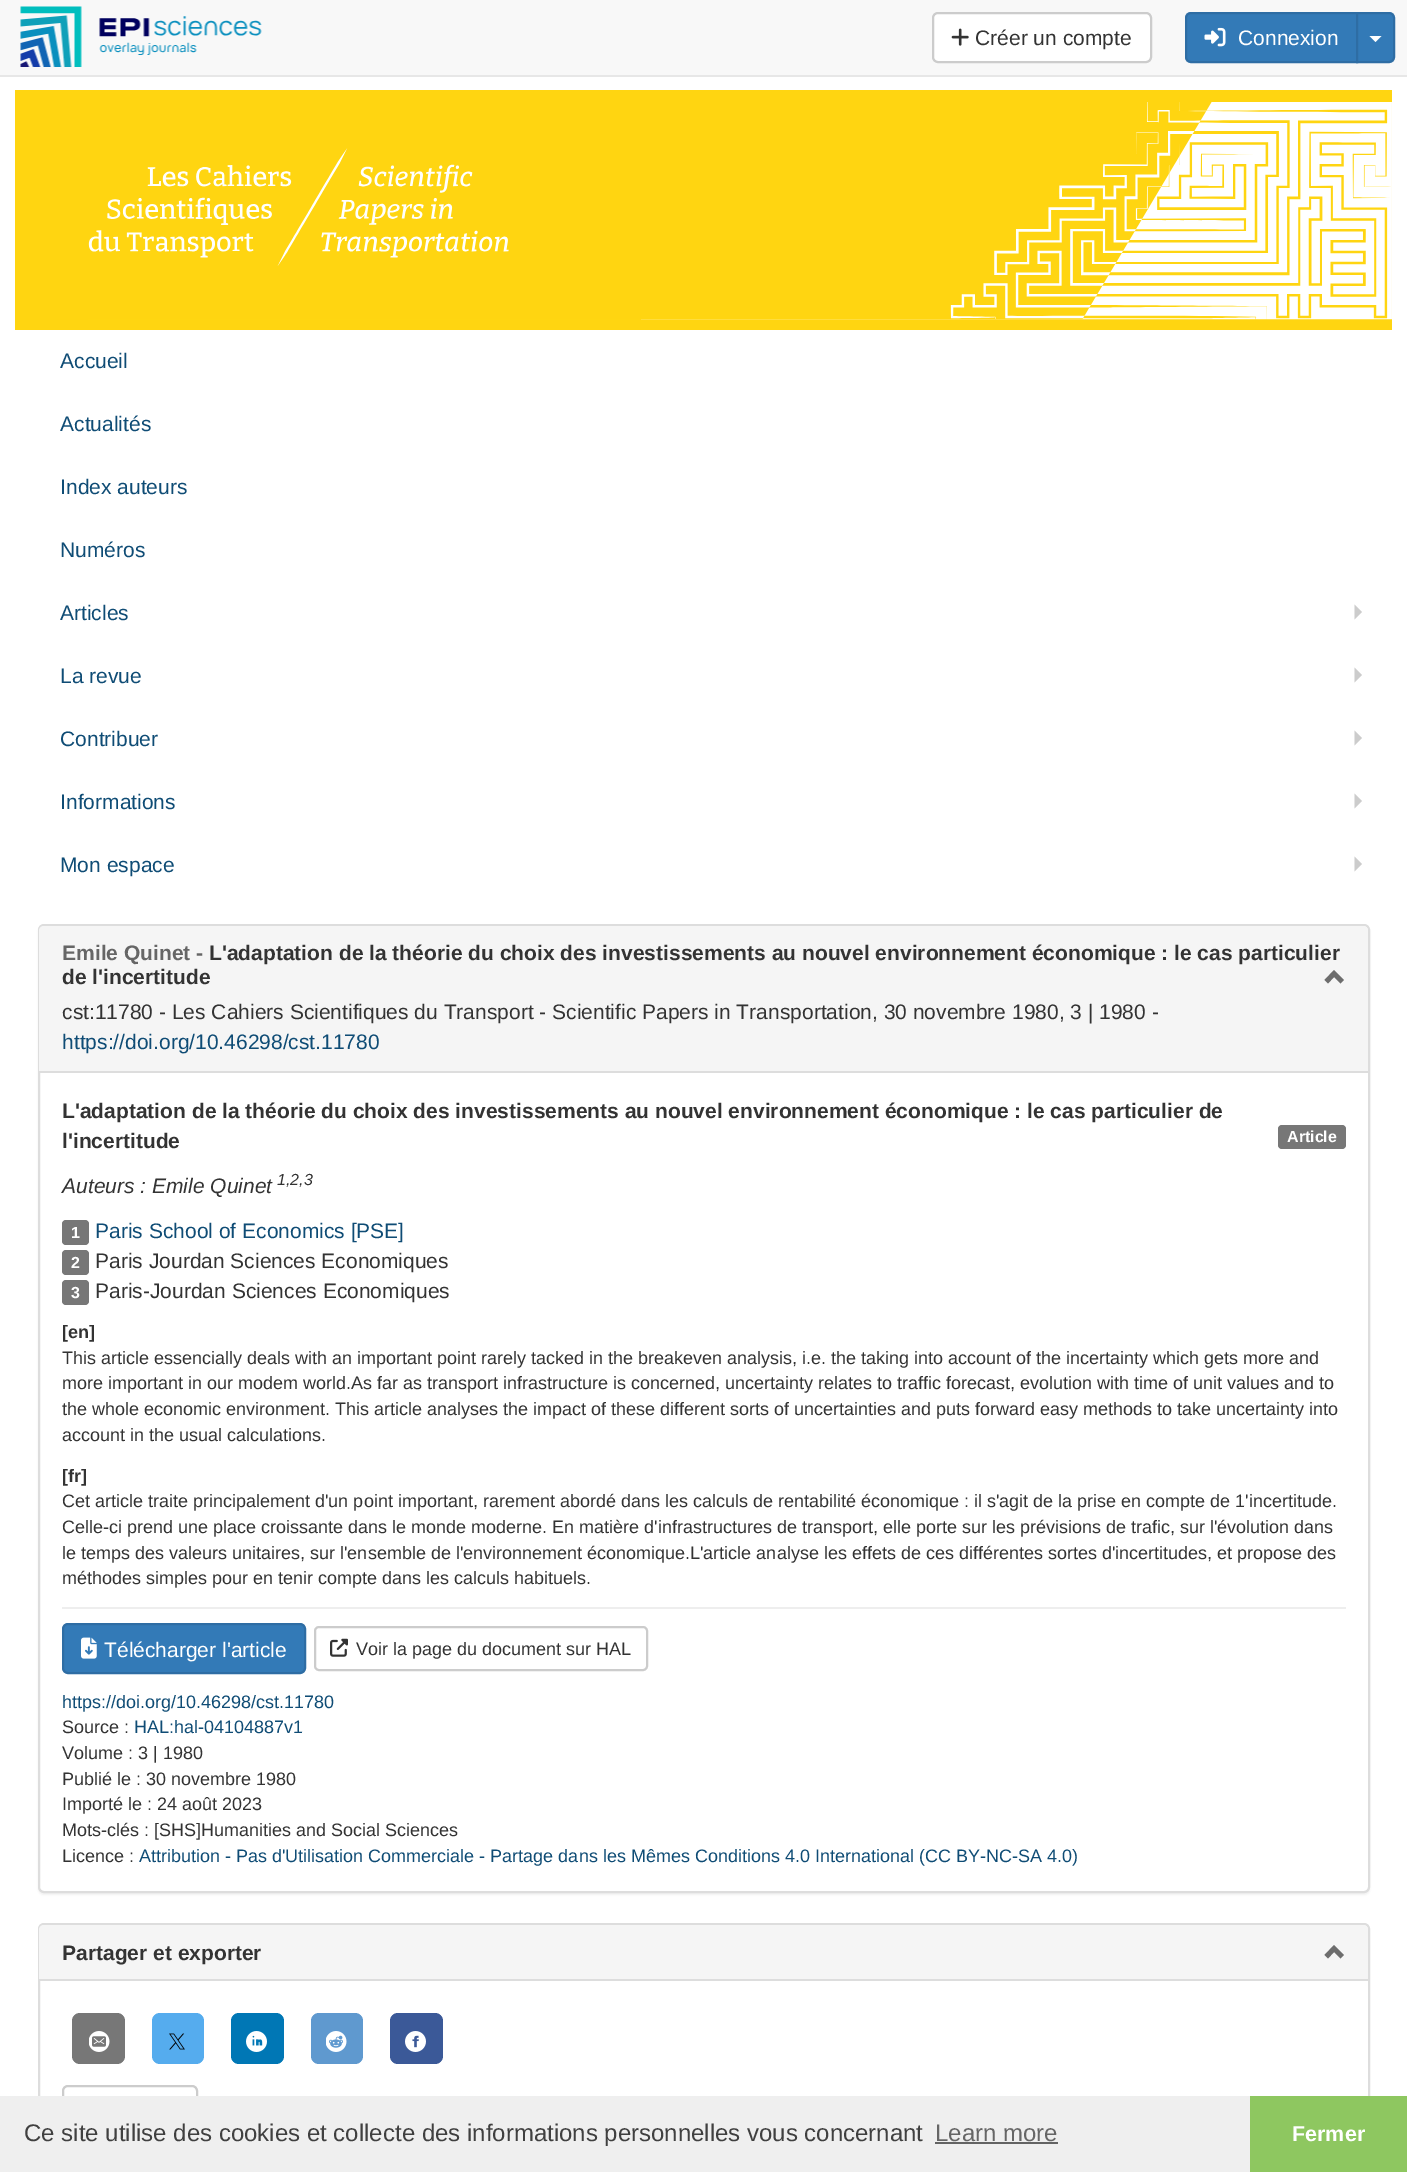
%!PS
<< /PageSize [1407 2172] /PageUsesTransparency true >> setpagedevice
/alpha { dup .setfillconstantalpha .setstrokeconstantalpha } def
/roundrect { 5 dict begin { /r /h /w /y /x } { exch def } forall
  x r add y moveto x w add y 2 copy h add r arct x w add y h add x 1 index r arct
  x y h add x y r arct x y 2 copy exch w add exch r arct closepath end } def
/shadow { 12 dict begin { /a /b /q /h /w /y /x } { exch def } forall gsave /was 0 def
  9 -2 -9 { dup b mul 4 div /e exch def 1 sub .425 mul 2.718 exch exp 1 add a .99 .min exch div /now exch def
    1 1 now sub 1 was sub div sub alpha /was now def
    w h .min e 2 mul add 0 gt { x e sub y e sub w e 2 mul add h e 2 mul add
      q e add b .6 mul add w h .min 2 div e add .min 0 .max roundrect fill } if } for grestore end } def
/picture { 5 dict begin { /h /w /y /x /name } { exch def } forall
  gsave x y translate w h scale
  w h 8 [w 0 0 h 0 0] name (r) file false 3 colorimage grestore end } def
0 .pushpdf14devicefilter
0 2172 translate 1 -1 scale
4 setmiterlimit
1 setgray
0 0 1407 2172 rectfill
0.973 setgray
0 0 1407 75 rectfill
0.906 setgray
0 75 1407 2 rectfill
(img1.rgb) 20 6 242 61 picture
1 setgray
933 13 218 49 5 roundrect gsave fill grestore
0.8 setgray
2 setlinewidth
stroke
(img2.rgb) 951 28 18 18 picture
/LiberationSans-Regular [21 0 0 -21 0 0] selectfont
0.2 setgray
975 45 moveto (Créer un compte) show
0.2 0.478 0.718 setrgbcolor
newpath 1191 13 moveto 1357 13 lineto 1357 62 lineto 1191 62 lineto 1188 62 1186 60 1186 57 curveto 1186 18 lineto 1186 15 1188 13 1191 13 curveto closepath gsave fill grestore
0.18 0.427 0.643 setrgbcolor
stroke
(img3.rgb) 1204 27 22 20 picture
1 setgray
1238 45 moveto (Connexion) show
0.2 0.478 0.718 setrgbcolor
newpath 1357 13 moveto 1389 13 lineto 1392 13 1394 15 1394 18 curveto 1394 57 lineto 1394 60 1392 62 1389 62 curveto 1357 62 lineto closepath gsave fill grestore
0.18 0.427 0.643 setrgbcolor
stroke
1 setgray
newpath 1369.5 36 moveto 1381.5 36 lineto 1375.5 42 lineto closepath fill
1 0.835 0.067 setrgbcolor
15 90 1377 240 rectfill
(img4.rgb) 88 102 1304 218 picture
0.059 0.298 0.459 setrgbcolor
60 368 moveto (Accueil) show
60 431 moveto (Actualités) show
60 494 moveto (Index auteurs) show
60 557 moveto (Numéros) show
60 620 moveto (Articles) show
0.8 setgray
newpath 1354.5 619.5 moveto 1354.5 604.5 lineto 1362 612 lineto closepath fill
0.059 0.298 0.459 setrgbcolor
60 683 moveto (La revue) show
0.8 setgray
newpath 1354.5 682.5 moveto 1354.5 667.5 lineto 1362 675 lineto closepath fill
0.059 0.298 0.459 setrgbcolor
60 746 moveto (Contribuer) show
0.8 setgray
newpath 1354.5 745.5 moveto 1354.5 730.5 lineto 1362 738 lineto closepath fill
0.059 0.298 0.459 setrgbcolor
60 809 moveto (Informations) show
0.8 setgray
newpath 1354.5 808.5 moveto 1354.5 793.5 lineto 1362 801 lineto closepath fill
0.059 0.298 0.459 setrgbcolor
60 872 moveto (Mon espace) show
0.8 setgray
newpath 1354.5 871.5 moveto 1354.5 856.5 lineto 1362 864 lineto closepath fill
0 setgray
38 926 1332 969 6 1 0.05 shadow
1 setgray
39 925 1330 967 5 roundrect gsave fill grestore
0.867 setgray
stroke
0.961 setgray
newpath 44 926 moveto 1363 926 lineto 1366 926 1368 928 1368 931 curveto 1368 1073 lineto 39 1073 lineto 39 931 lineto 39 928 41 926 44 926 curveto closepath fill
0.867 setgray
39 1071 1329 2 rectfill
/LiberationSans-Bold [21 0 0 -21 0 0] selectfont
0.4 setgray
62 960 moveto (Emile Quinet -) show
0.2 setgray
209 960 moveto (L'adaptation de la théorie du choix des investissements au nouvel environnement économique : le cas particulier) show
62 984 moveto (de l'incertitude) show
0.427 setgray
newpath 1344 980 moveto 1340.5 983.5 lineto 1334 977 lineto 1328 983.5 lineto 1324.5 980 lineto 1334 970 lineto closepath fill
/LiberationSans-Regular [21 0 0 -21 0 0] selectfont
0.2 setgray
62 1019 moveto (cst:11780 - Les Cahiers Scientifiques du Transport - Scientific Papers in Transportation, 30 novembre 1980, 3 | 1980 -) show
0.059 0.298 0.459 setrgbcolor
62 1049 moveto (https://doi.org/10.46298/cst.11780) show
/LiberationSans-Bold [21 0 0 -21 0 0] selectfont
0.2 setgray
62 1118 moveto (L'adaptation de la théorie du choix des investissements au nouvel environnement économique : le cas particulier de) show
62 1148 moveto (l'incertitude) show
0.467 setgray
1278 1125 68 24 4 roundrect fill
/LiberationSans-Bold [16 0 0 -16 0 0] selectfont
1 setgray
1287 1142 moveto (Article) show
/LiberationSans-Italic [21 0 0 -21 0 0] selectfont
0.2 setgray
62 1193 moveto (Auteurs : Emile Quinet) show
/LiberationSans-Italic [16 0 0 -16 0 0] selectfont
277 1185 moveto (1,2,3) show
0.467 setgray
62 1220 27 25 4 roundrect fill
/LiberationSans-Bold [16 0 0 -16 0 0] selectfont
1 setgray
71 1238 moveto (1) show
/LiberationSans-Regular [21 0 0 -21 0 0] selectfont
0.059 0.298 0.459 setrgbcolor
95 1238 moveto (Paris School of Economics [PSE]) show
0.467 setgray
62 1250 27 25 4 roundrect fill
/LiberationSans-Bold [16 0 0 -16 0 0] selectfont
1 setgray
71 1268 moveto (2) show
/LiberationSans-Regular [21 0 0 -21 0 0] selectfont
0.2 setgray
95 1268 moveto (Paris Jourdan Sciences Economiques) show
0.467 setgray
62 1280 27 25 4 roundrect fill
/LiberationSans-Bold [16 0 0 -16 0 0] selectfont
1 setgray
71 1298 moveto (3) show
/LiberationSans-Regular [21 0 0 -21 0 0] selectfont
0.2 setgray
95 1298 moveto (Paris-Jourdan Sciences Economiques) show
/LiberationSans-Bold [18 0 0 -18 0 0] selectfont
62 1338 moveto ([en]) show
/LiberationSans-Regular [18 0 0 -18 0 0] selectfont
62 1364 moveto (This article essencially deals with an important point rarely tacked in the breakeven analysis, i.e. the taking into account of the incertainty which gets more and) show
62 1389 moveto (more important in our modem world.As far as transport infrastructure is concerned, uncertainty relates to traffic forecast, evolution with time of unit values and to) show
62 1415 moveto (the whole economic environment. This article analyses the impact of these different sorts of uncertainties and puts forward easy methods to take uncertainty into) show
62 1441 moveto (account in the usual calculations.) show
/LiberationSans-Bold [18 0 0 -18 0 0] selectfont
62 1482 moveto ([fr]) show
/LiberationSans-Regular [18 0 0 -18 0 0] selectfont
62 1507 moveto (Cet article traite principalement d'un point important, rarement abordé dans les calculs de rentabilité économique : il s'agit de la prise en compte de 1'incertitude.) show
62 1533 moveto (Celle-ci prend une place croissante dans le monde moderne. En matière d'infrastructures de transport, elle porte sur les prévisions de trafic, sur l'évolution dans) show
62 1559 moveto (le temps des valeurs unitaires, sur l'ensemble de l'environnement économique.L'article analyse les effets de ces différentes sortes d'incertitudes, et propose des) show
62 1584 moveto (méthodes simples pour en tenir compte dans les calculs habituels.) show
0.933 setgray
62 1607 1284 2 rectfill
0.2 0.478 0.718 setrgbcolor
63 1624 242 49 5 roundrect gsave fill grestore
0.18 0.427 0.643 setrgbcolor
stroke
(img5.rgb) 81 1637 16 22 picture
/LiberationSans-Regular [21 0 0 -21 0 0] selectfont
1 setgray
104 1657 moveto (Télécharger l'article) show
0.8 setgray
315 1627 332 43 4 roundrect stroke
(img6.rgb) 330 1638 18 19 picture
/LiberationSans-Regular [18 0 0 -18 0 0] selectfont
0.2 setgray
356 1655 moveto (Voir la page du document sur HAL) show
0.059 0.298 0.459 setrgbcolor
62 1708 moveto (https://doi.org/10.46298/cst.11780) show
0.2 setgray
62 1733 moveto (Source :) show
0.059 0.298 0.459 setrgbcolor
134 1733 moveto (HAL:hal-04104887v1) show
0.2 setgray
62 1759 moveto (Volume : 3 | 1980) show
62 1785 moveto (Publié le : 30 novembre 1980) show
62 1810 moveto (Importé le : 24 août 2023) show
62 1836 moveto (Mots-clés : [SHS]Humanities and Social Sciences) show
62 1862 moveto (Licence :) show
0.059 0.298 0.459 setrgbcolor
139 1862 moveto (Attribution - Pas d'Utilisation Commerciale - Partage dans les Mêmes Conditions 4.0 International \(CC BY-NC-SA 4.0\)) show
0.867 setgray
39 1924 1330 235 5 roundrect stroke
0.961 setgray
newpath 44 1925 moveto 1363 1925 lineto 1366 1925 1368 1927 1368 1930 curveto 1368 1980 lineto 39 1980 lineto 39 1930 lineto 39 1927 41 1925 44 1925 curveto closepath fill
0.867 setgray
39 1979 1329 2 rectfill
/LiberationSans-Bold [21 0 0 -21 0 0] selectfont
0.2 setgray
62 1960 moveto (Partager et exporter) show
0.427 setgray
newpath 1344 1955 moveto 1340.5 1958.5 lineto 1334 1952 lineto 1328 1958.5 lineto 1324.5 1955 lineto 1334 1945 lineto closepath fill
0.467 setgray
72 2013 53 51 8 roundrect fill
(img7.rgb) 89 2031 21 21 picture
0.333 0.675 0.933 setrgbcolor
152 2013 52 51 8 roundrect fill
(img8.rgb) 169 2033 16 17 picture
0 0.467 0.71 setrgbcolor
231 2013 53 51 8 roundrect fill
(img9.rgb) 246 2031 21 21 picture
0.373 0.6 0.812 setrgbcolor
311 2013 52 51 8 roundrect fill
(img10.rgb) 326 2031 21 21 picture
0.231 0.349 0.596 setrgbcolor
390 2013 53 51 8 roundrect fill
(img11.rgb) 405 2031 21 21 picture
0.8 setgray
63 2086 134 49 5 roundrect stroke
0.937 setgray
0 2096 1250 76 rectfill
/LiberationSans-Regular [24 0 0 -24 0 0] selectfont
0.251 setgray
24 2141 moveto (Ce site utilise des cookies et collecte des informations personnelles vous concernant) show
0.4 setgray
935 2141 moveto (Learn more) show
0.388 setgray
935 2142 123 2 rectfill
0.557 0.78 0.376 setrgbcolor
1250 2096 157 76 rectfill
/LiberationSans-Bold [21.5 0 0 -21.5 0 0] selectfont
1 setgray
1292 2141 moveto (Fermer) show
.poppdf14devicefilter showpage
